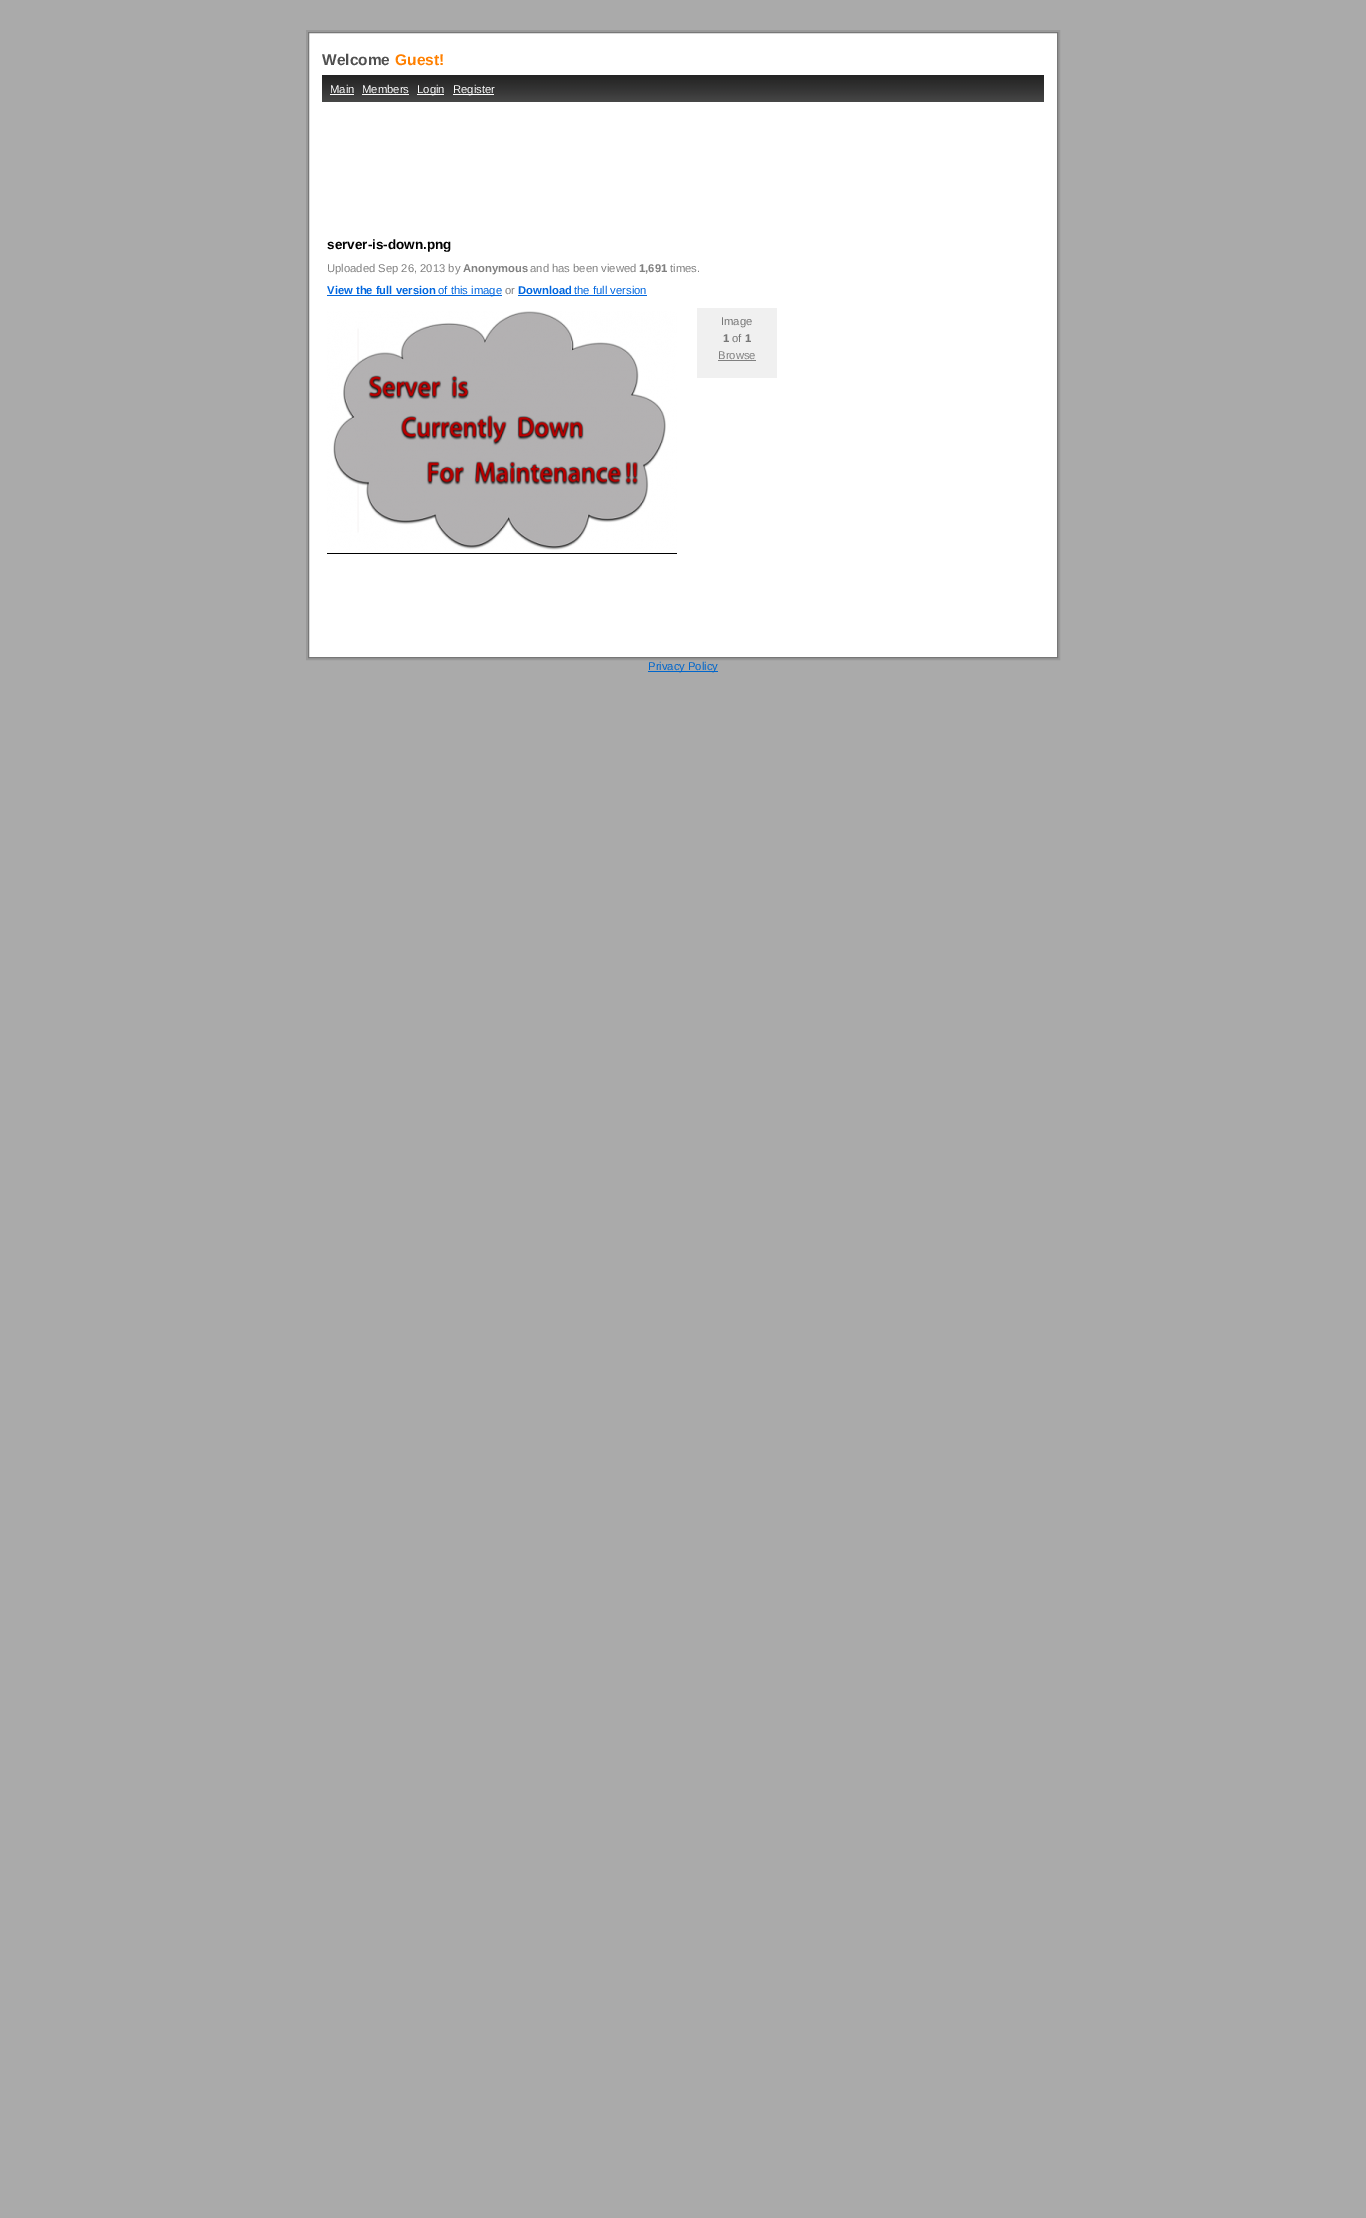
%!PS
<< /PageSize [1366 2218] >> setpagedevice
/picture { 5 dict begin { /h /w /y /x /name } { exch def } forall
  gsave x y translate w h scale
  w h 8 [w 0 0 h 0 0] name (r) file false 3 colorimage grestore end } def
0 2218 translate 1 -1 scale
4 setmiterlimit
0.667 setgray
0 0 1366 2218 rectfill
1 setgray
309 33 748 624 rectfill
0.6 setgray
2 setlinewidth
307 31 752 628 rectstroke
0.467 setgray
1 setlinewidth
308.5 32.5 749 625 rectstroke
/LiberationSans-Bold [15.5 0 0 -15.5 0 0] selectfont
0.314 setgray
322 65 moveto (Welcome) show
1 0.502 0 setrgbcolor
395 65 moveto (Guest!) show
(img1.rgb) 322 75 722 27 picture
/LiberationSans-Regular [11.25 0 0 -11.25 0 0] selectfont
1 setgray
330 93 moveto (Main) show
330 94 24 1 rectfill
362 93 moveto (Members) show
362 94 47 1 rectfill
417 94 27 1 rectfill
417 93 moveto (Login) show
453 94 41 1 rectfill
453 93 moveto (Register) show
/LiberationSans-Bold [13.5 0 0 -13.5 0 0] selectfont
0 setgray
327 249 moveto (server-is-down.png) show
/LiberationSans-Regular [11.25 0 0 -11.25 0 0] selectfont
0.502 setgray
327 272 moveto (Uploaded Sep 26, 2013 by) show
/LiberationSans-Bold [11.25 0 0 -11.25 0 0] selectfont
463 272 moveto (Anonymous) show
/LiberationSans-Regular [11.25 0 0 -11.25 0 0] selectfont
530 272 moveto (and has been viewed) show
/LiberationSans-Bold [11.25 0 0 -11.25 0 0] selectfont
639 272 moveto (1,691) show
/LiberationSans-Regular [11.25 0 0 -11.25 0 0] selectfont
670 272 moveto (times.) show
/LiberationSans-Bold [11.25 0 0 -11.25 0 0] selectfont
0 0.4 0.875 setrgbcolor
327 294 moveto (View the full version) show
327 295 175 1 rectfill
/LiberationSans-Regular [11.25 0 0 -11.25 0 0] selectfont
438 294 moveto (of this image) show
0.502 setgray
505 294 moveto (or) show
/LiberationSans-Bold [11.25 0 0 -11.25 0 0] selectfont
0 0.4 0.875 setrgbcolor
518 294 moveto (Download) show
518 295 129 1 rectfill
/LiberationSans-Regular [11.25 0 0 -11.25 0 0] selectfont
574 294 moveto (the full version) show
(img2.rgb) 327 311 350 243 picture
0.941 setgray
697 308 80 70 rectfill
0.467 setgray
721 325 moveto (Image) show
/LiberationSans-Bold [11.25 0 0 -11.25 0 0] selectfont
723 342 moveto (1) show
/LiberationSans-Regular [11.25 0 0 -11.25 0 0] selectfont
732 342 moveto (of) show
/LiberationSans-Bold [11.25 0 0 -11.25 0 0] selectfont
745 342 moveto (1) show
/LiberationSans-Regular [11.25 0 0 -11.25 0 0] selectfont
0.502 setgray
718 359 moveto (Browse) show
718 360 38 1 rectfill
0 0.4 0.8 setrgbcolor
648 671 70 1 rectfill
648 670 moveto (Privacy Policy) show
showpage
